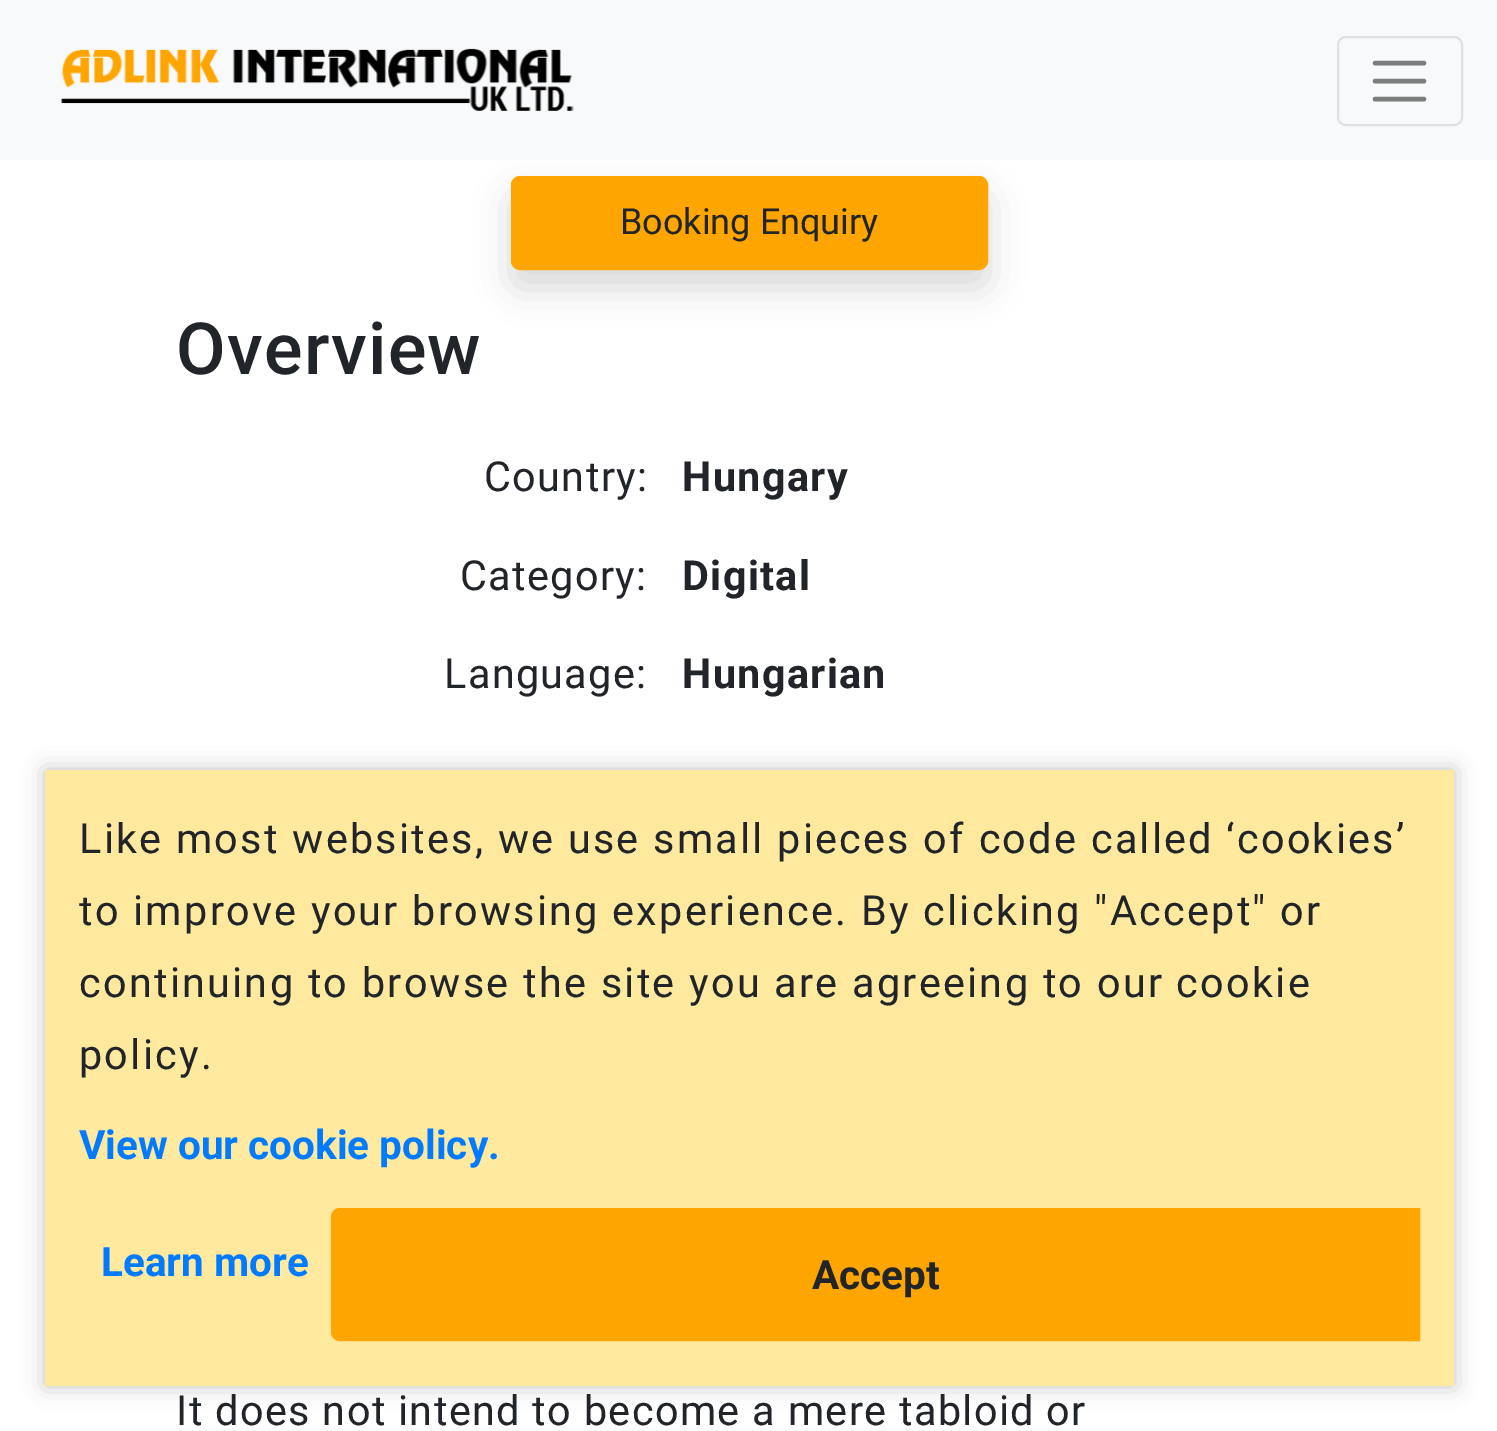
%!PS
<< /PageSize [1497 1431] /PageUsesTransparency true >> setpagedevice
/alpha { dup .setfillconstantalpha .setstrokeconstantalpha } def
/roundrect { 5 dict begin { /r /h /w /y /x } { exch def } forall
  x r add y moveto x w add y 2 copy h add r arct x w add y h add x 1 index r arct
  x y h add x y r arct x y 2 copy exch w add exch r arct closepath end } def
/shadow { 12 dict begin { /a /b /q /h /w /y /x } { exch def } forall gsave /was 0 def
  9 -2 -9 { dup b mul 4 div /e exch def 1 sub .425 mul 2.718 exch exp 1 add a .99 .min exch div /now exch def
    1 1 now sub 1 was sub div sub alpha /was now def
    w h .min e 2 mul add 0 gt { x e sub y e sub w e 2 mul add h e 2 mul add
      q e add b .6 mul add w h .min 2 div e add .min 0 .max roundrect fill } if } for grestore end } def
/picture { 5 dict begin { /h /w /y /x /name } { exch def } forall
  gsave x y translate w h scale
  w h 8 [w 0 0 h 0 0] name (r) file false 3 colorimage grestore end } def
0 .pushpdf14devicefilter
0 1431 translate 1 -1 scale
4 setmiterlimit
1 setgray
0 0 1497 1431 rectfill
0 setgray
511 194 477 94 9 18 0.15 shadow
0.973 0.976 0.98 setrgbcolor
0 0 1497 160 rectfill
(img1.rgb) 61 48 513 63 picture
0.875 0.878 0.882 setrgbcolor
2 setlinewidth
1338 37 124 88 8 roundrect stroke
0.486 0.49 0.49 setrgbcolor
4.5 setlinewidth
1 setlinecap
newpath 1375 63 moveto 1424 63 lineto 1375 81 moveto 1424 81 lineto 1375 99 moveto 1424 99 lineto stroke
1 0.647 0 setrgbcolor
512 177 475 92 8 roundrect gsave fill grestore
2 setlinewidth
0 setlinecap
stroke
/Roboto-Regular [36 0 0 -36 0 0] selectfont
0.129 0.145 0.161 setrgbcolor
620 234 moveto (Booking Enquiry) show
/Roboto-Medium [72 0 0 -72 0 0] selectfont
176 374 moveto 1.35 0 (Overview) ashow
/Roboto-Regular [41.4 0 0 -41.4 0 0] selectfont
484 491 moveto 1.35 0 (Country:) ashow
/Roboto-Bold [41.4 0 0 -41.4 0 0] selectfont
682 491 moveto 1.35 0 (Hungary) ashow
/Roboto-Regular [41.4 0 0 -41.4 0 0] selectfont
460 590 moveto 1.35 0 (Category:) ashow
/Roboto-Bold [41.4 0 0 -41.4 0 0] selectfont
682 590 moveto 1.35 0 (Digital) ashow
/Roboto-Regular [41.4 0 0 -41.4 0 0] selectfont
444 688 moveto 1.35 0 (Language:) ashow
/Roboto-Bold [41.4 0 0 -41.4 0 0] selectfont
682 688 moveto 1.35 0 (Hungarian) ashow
/Roboto-Regular [41.4 0 0 -41.4 0 0] selectfont
176 1425 moveto 1.35 0 (It does not intend to become a mere tabloid or) ashow
0.188 setgray
45 770 1409 616 0 11 0.3 shadow
1 0.914 0.624 setrgbcolor
45 770 1409 616 rectfill
0.129 0.145 0.161 setrgbcolor
79 853 moveto 2.25 0 (Like most websites, we use small pieces of code called ‘cookies’) ashow
79 925 moveto 2.25 0 (to improve your browsing experience. By clicking "Accept" or) ashow
79 997 moveto 2.25 0 (continuing to browse the site you are agreeing to our cookie) ashow
79 1069 moveto 2.25 0 (policy.) ashow
/Roboto-Bold [40.5 0 0 -40.5 0 0] selectfont
0 0.482 1 setrgbcolor
79 1159 moveto (View our cookie policy.) show
101 1276 moveto (Learn more) show
1 0.647 0 setrgbcolor
newpath 340 1209 moveto 1419 1209 lineto 1419 1340 lineto 340 1340 lineto 335.5 1340 332 1336.5 332 1332 curveto 332 1217 lineto 332 1212.5 335.5 1209 340 1209 curveto closepath gsave fill grestore
stroke
0.129 0.145 0.161 setrgbcolor
812 1289 moveto (Accept) show
.poppdf14devicefilter showpage
